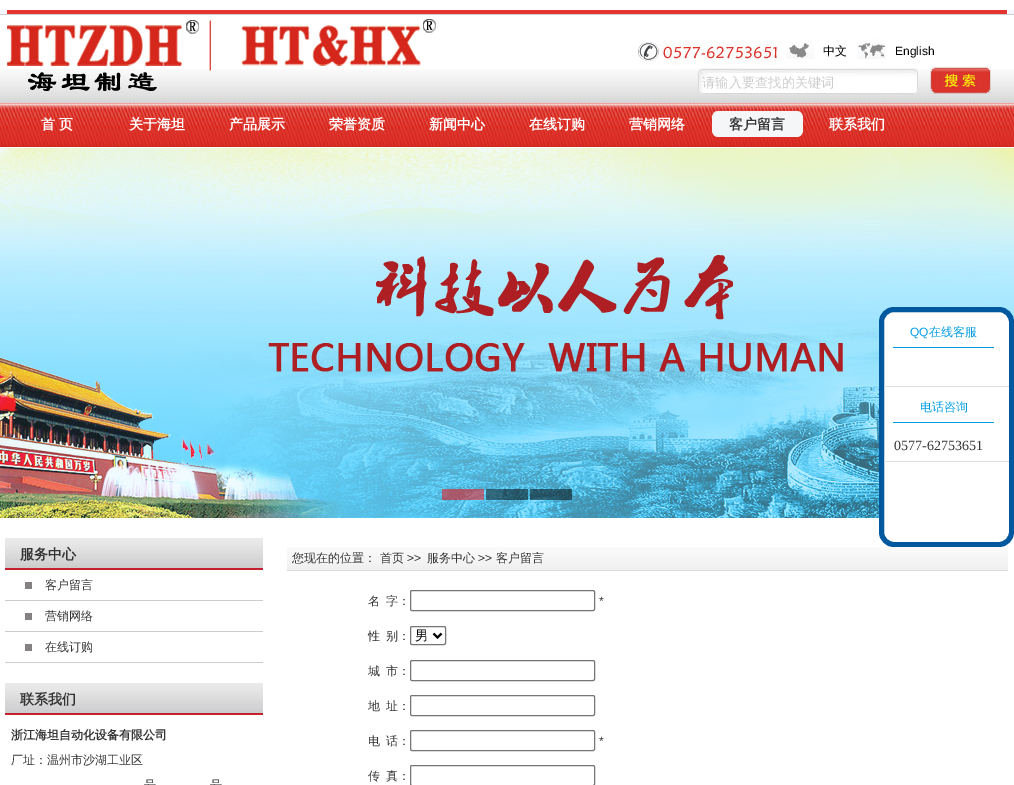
%!PS
<< /PageSize [1014 785] /PageUsesTransparency true >> setpagedevice
/alpha { dup .setfillconstantalpha .setstrokeconstantalpha } def
/roundrect { 5 dict begin { /r /h /w /y /x } { exch def } forall
  x r add y moveto x w add y 2 copy h add r arct x w add y h add x 1 index r arct
  x y h add x y r arct x y 2 copy exch w add exch r arct closepath end } def
/picture { 5 dict begin { /h /w /y /x /name } { exch def } forall
  gsave x y translate w h scale
  w h 8 [w 0 0 h 0 0] name (r) file false 3 colorimage grestore end } def
0 .pushpdf14devicefilter
0 785 translate 1 -1 scale
4 setmiterlimit
1 setgray
0 0 1014 785 rectfill
0.961 0.965 0.984 setrgbcolor
0 10 1014 4 rectfill
0.8 setgray
0 14 1014 1 rectfill
0.89 0.208 0.18 setrgbcolor
7 10 1000 4 rectfill
(img1.rgb) 0 69 1014 34 picture
(img2.rgb) 7 19 429 72 picture
(img3.rgb) 638 41 144 24 picture
(img4.rgb) 786 40 28 19 picture
/WenQuanYiZenHei-Medium [12 0 0 -12 0 0] selectfont
0 setgray
823 55 moveto (中文) show
(img5.rgb) 857 38 29 21 picture
/LiberationSans-Regular [12 0 0 -12 0 0] selectfont
895 55 moveto (English) show
(img6.rgb) 697 68 221 26 picture
/WenQuanYiZenHei-Medium [13.25 0 0 -13.25 0 0] selectfont
0.8 setgray
702 87 moveto (请输入要查找的关键词) show
(img7.rgb) 930 66 61 28 picture
(img8.rgb) 0 103 1014 44 picture
/WenQuanYiZenHei-Bold [14 0 0 -14 0 0] selectfont
1 setgray
41 129 moveto (首 页) show
129 129 moveto (关于海坦) show
229 129 moveto (产品展示) show
329 129 moveto (荣誉资质) show
429 129 moveto (新闻中心) show
529 129 moveto (在线订购) show
629 129 moveto (营销网络) show
(img9.rgb) 712 111 91 26 picture
0.2 setgray
729 129 moveto (客户留言) show
1 setgray
829 129 moveto (联系我们) show
(img10.rgb) 0 148 1014 370 picture
0.5 alpha
1 0 0 setrgbcolor
442 489 42 11 rectfill
0 setgray
486 489 42 11 rectfill
530 489 42 11 rectfill
1 alpha
1 setgray
881.5 309.5 130 235 12.5 roundrect gsave fill grestore
0 0.345 0.624 setrgbcolor
5 setlinewidth
stroke
0 0.612 0.89 setrgbcolor
893 347 101 1 rectfill
/LiberationSans-Regular [12 0 0 -12 0 0] selectfont
910 336 moveto (QQ) show
/WenQuanYiZenHei-Medium [12 0 0 -12 0 0] selectfont
929 336 moveto (在线客服) show
0.871 0.859 0.859 setrgbcolor
884 386 125 1 rectfill
0 0.612 0.89 setrgbcolor
893 422 101 1 rectfill
920 411 moveto (电话咨询) show
0.871 0.859 0.859 setrgbcolor
884 461 125 1 rectfill
/LiberationSerif-Regular [14 0 0 -14 0 0] selectfont
0.2 setgray
894 450 moveto (0577-62753651) show
(img11.rgb) 5 538 258 32 picture
/WenQuanYiZenHei-Bold [14 0 0 -14 0 0] selectfont
20 559 moveto (服务中心) show
0.522 0.506 0.51 setrgbcolor
25 582 7 7 rectfill
0.8 setgray
5 600 258 1 rectfill
/WenQuanYiZenHei-Medium [12 0 0 -12 0 0] selectfont
0.2 setgray
45 589 moveto (客户留言) show
0.522 0.506 0.51 setrgbcolor
25 613 7 7 rectfill
0.8 setgray
5 631 258 1 rectfill
0.2 setgray
45 620 moveto (营销网络) show
0.522 0.506 0.51 setrgbcolor
25 644 7 7 rectfill
0.8 setgray
5 662 258 1 rectfill
0.2 setgray
45 651 moveto (在线订购) show
(img11.rgb) 5 683 258 32 picture
/WenQuanYiZenHei-Bold [14 0 0 -14 0 0] selectfont
20 704 moveto (联系我们) show
/WenQuanYiZenHei-Bold [12 0 0 -12 0 0] selectfont
11 739 moveto (浙江海坦自动化设备有限公司) show
/WenQuanYiZenHei-Medium [12 0 0 -12 0 0] selectfont
11 764 moveto (厂址：温州市沙湖工业区) show
144 789 moveto (号) show
210 789 moveto (号) show
(img12.rgb) 287 547 721 24 picture
292 562 moveto (您现在的位置： 首页) show
/LiberationSans-Regular [12 0 0 -12 0 0] selectfont
407 562 moveto (>>) show
/WenQuanYiZenHei-Medium [12 0 0 -12 0 0] selectfont
427 562 moveto (服务中心) show
/LiberationSans-Regular [12 0 0 -12 0 0] selectfont
478 562 moveto (>>) show
/WenQuanYiZenHei-Medium [12 0 0 -12 0 0] selectfont
496 562 moveto (客户留言) show
368 605 moveto (名) show
386 605 moveto (字：) show
0.463 setgray
1 setlinewidth
410.5 590.5 184 20 1.5 roundrect stroke
/LiberationSans-Regular [12 0 0 -12 0 0] selectfont
0.2 setgray
599 605 moveto (*) show
/WenQuanYiZenHei-Medium [12 0 0 -12 0 0] selectfont
368 640 moveto (性) show
386 640 moveto (别：) show
0.463 setgray
410.5 626.5 35 18 1.5 roundrect stroke
0 setgray
2 setlinewidth
newpath 433.5 633.5 moveto 437.5 637.5 lineto 441.5 633.5 lineto stroke
/WenQuanYiZenHei-Medium [13.25 0 0 -13.25 0 0] selectfont
415 640 moveto (男) show
/WenQuanYiZenHei-Medium [12 0 0 -12 0 0] selectfont
0.2 setgray
368 675 moveto (城) show
386 675 moveto (市：) show
0.463 setgray
1 setlinewidth
410.5 660.5 184 20 1.5 roundrect stroke
0.2 setgray
368 710 moveto (地) show
386 710 moveto (址：) show
0.463 setgray
410.5 695.5 184 20 1.5 roundrect stroke
0.2 setgray
368 745 moveto (电) show
386 745 moveto (话：) show
0.463 setgray
410.5 730.5 184 20 1.5 roundrect stroke
/LiberationSans-Regular [12 0 0 -12 0 0] selectfont
0.2 setgray
599 745 moveto (*) show
/WenQuanYiZenHei-Medium [12 0 0 -12 0 0] selectfont
368 780 moveto (传) show
386 780 moveto (真：) show
0.463 setgray
410.5 765.5 184 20 1.5 roundrect stroke
.poppdf14devicefilter showpage
